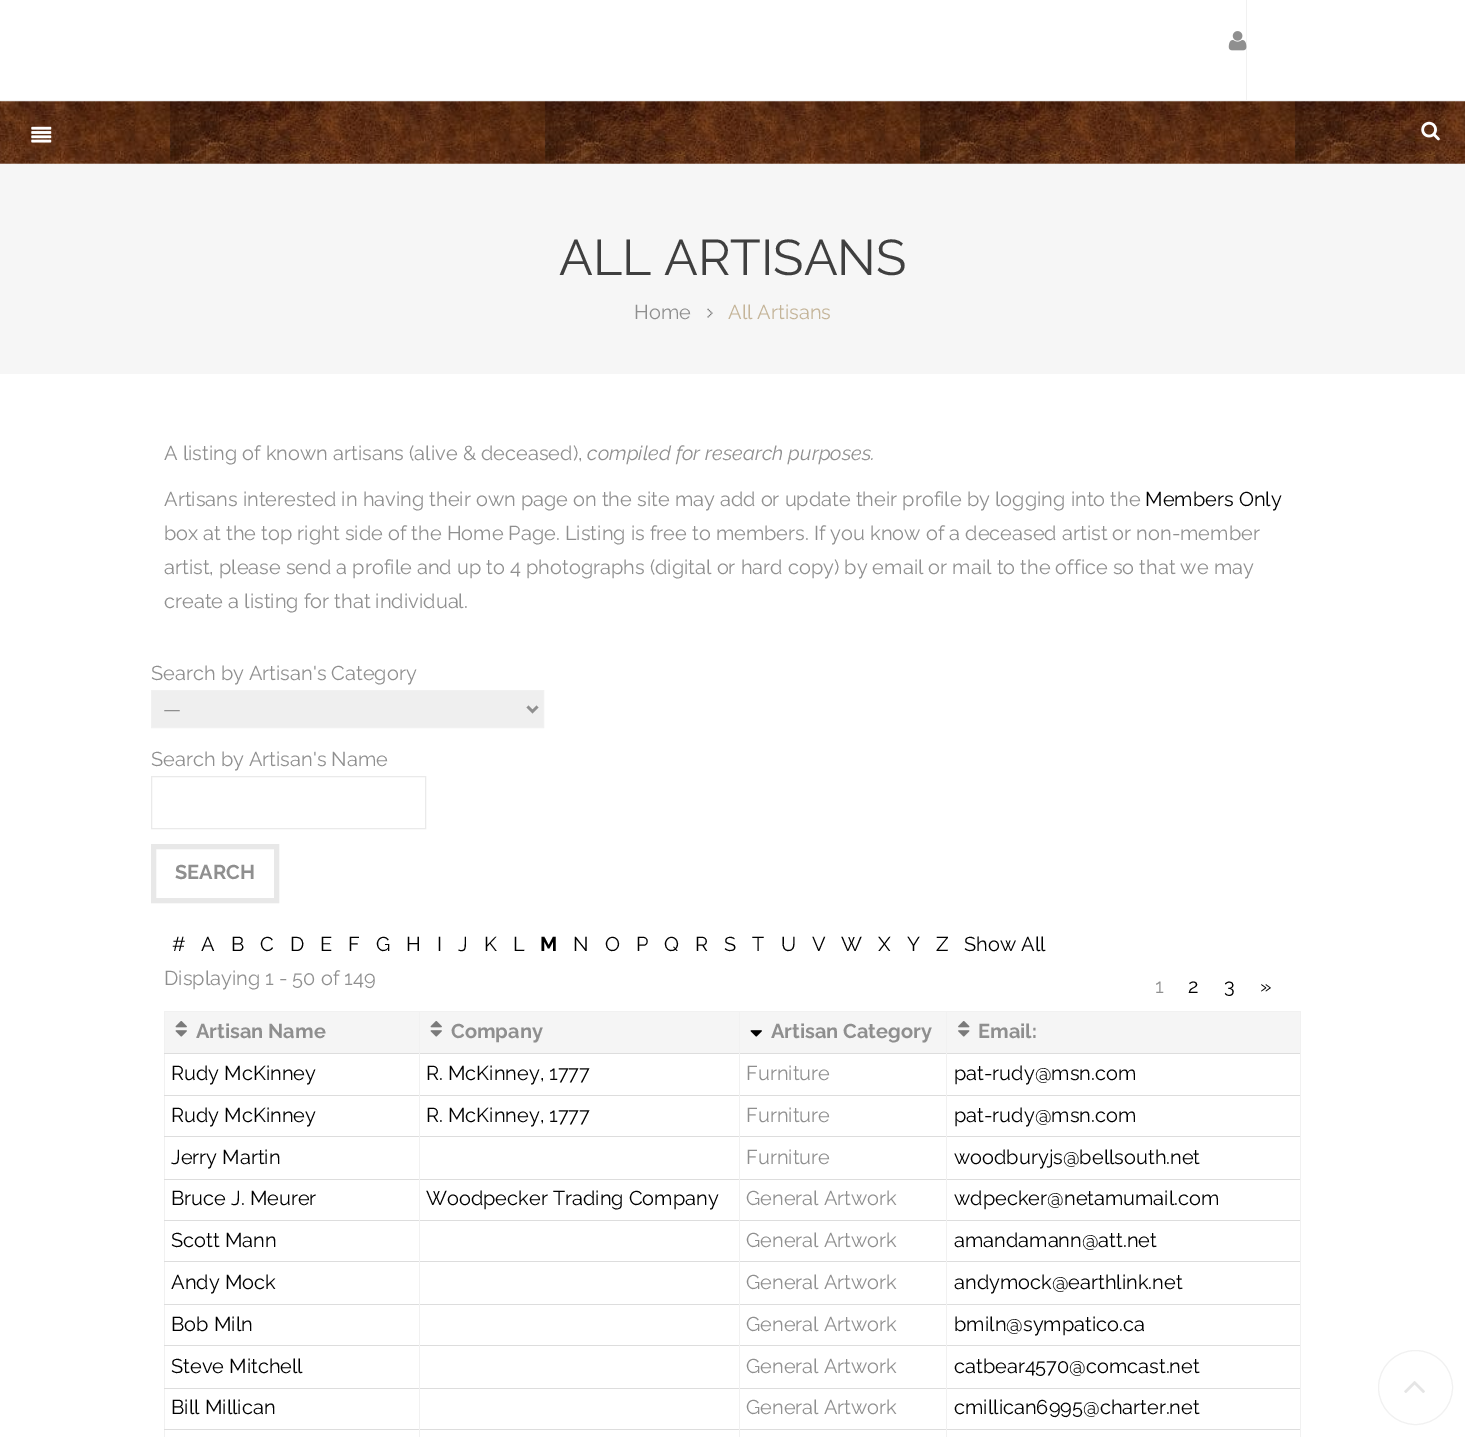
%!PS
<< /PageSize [1465 1437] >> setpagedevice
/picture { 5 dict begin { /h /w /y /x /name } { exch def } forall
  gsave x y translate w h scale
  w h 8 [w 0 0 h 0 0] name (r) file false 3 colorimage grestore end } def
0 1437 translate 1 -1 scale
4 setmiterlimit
1 setgray
0 0 1465 1437 rectfill
0.945 setgray
0 100 1465 1 rectfill
1246 0 1 100 rectfill
(img1.rgb) 1228 31 19 20 picture
(img2.rgb) 0 101 1465 63 picture
(img3.rgb) 31 126 21 17 picture
(img4.rgb) 1421 121 19 20 picture
0.965 setgray
0 164 1465 210 rectfill
/Raleway-Regular [50 0 0 -50 0 0] selectfont
0.247 setgray
559 275 moveto (ALL ARTISANS) show
/Raleway-Regular [20 0 0 -20 0 0] selectfont
0.561 setgray
634 319 moveto (Home) show
(img5.rgb) 707 308 6 10 picture
0.769 0.706 0.596 setrgbcolor
728 319 moveto (All Artisans) show
0.561 setgray
164 460 moveto (A listing of known artisans \(alive & deceased\),) show
/Raleway-Italic [20 0 0 -20 0 0] selectfont
587 460 moveto (compiled for research purposes.) show
/Raleway-Regular [20 0 0 -20 0 0] selectfont
164 506 moveto (Artisans interested in having their own page on the site may add or update their profile by logging into the) show
0 setgray
1145 506 moveto (Members Only) show
0.561 setgray
164 540 moveto (box at the top right side of the Home Page. Listing is free to members. If you know of a deceased artist or non-member) show
164 574 moveto (artist, please send a profile and up to 4 photographs \(digital or hard copy\) by email or mail to the office so that we may) show
164 608 moveto (create a listing for that individual.) show
151 680 moveto (Search by Artisan's Category) show
0.937 setgray
newpath 151.5 690.5 moveto 543.5 690.5 lineto 543.5 727.5 lineto 151.5 727.5 lineto closepath gsave fill grestore
0.945 setgray
stroke
0.561 setgray
2.5 setlinewidth
newpath 527.5 706.5 moveto 532.5 711.5 lineto 537.5 706.5 lineto stroke
163 716 moveto (—) show
151 766 moveto (Search by Artisan's Name) show
0.918 setgray
1 setlinewidth
151.5 776.5 274 52 rectstroke
0.91 setgray
5 setlinewidth
153.5 846.5 123 54 rectstroke
/Raleway-Bold [20 0 0 -20 0 0] selectfont
0.561 setgray
175 879 moveto (SEARCH) show
/Raleway-Regular [20 0 0 -20 0 0] selectfont
0 setgray
172 951 moveto (#) show
201 951 moveto (A) show
231 951 moveto (B) show
260 951 moveto (C) show
290 951 moveto (D) show
320 951 moveto (E) show
348 951 moveto (F) show
376 951 moveto (G) show
406 951 moveto (H) show
437 951 moveto (I) show
458 951 moveto (J) show
484 951 moveto (K) show
513 951 moveto (L) show
/Raleway-Bold [20 0 0 -20 0 0] selectfont
540 951 moveto (M) show
/Raleway-Regular [20 0 0 -20 0 0] selectfont
573 951 moveto (N) show
605 951 moveto (O) show
636 951 moveto (P) show
664 951 moveto (Q) show
695 951 moveto (R) show
724 951 moveto (S) show
752 951 moveto (T) show
781 951 moveto (U) show
812 951 moveto (V) show
841 951 moveto (W) show
878 951 moveto (X) show
907 951 moveto (Y) show
936 951 moveto (Z) show
964 951 moveto (Show All) show
0.561 setgray
164 985 moveto (Displaying 1 - 50 of 149) show
1155 993 moveto (1) show
0 setgray
1188 993 moveto (2) show
1224 993 moveto (3) show
1260 993 moveto (») show
0.945 setgray
164 1011 1137 1 rectfill
1300 1011 1 42 rectfill
164 1011 1 426 rectfill
0.961 setgray
165 1012 254 41 rectfill
(img6.rgb) 175 1021 12 16 picture
/Raleway-Bold [20 0 0 -20 0 0] selectfont
0.561 setgray
196 1038 moveto (Artisan Name) show
0.961 setgray
420 1012 319 41 rectfill
(img6.rgb) 430 1021 12 16 picture
0.561 setgray
451 1038 moveto (Company) show
0.961 setgray
740 1012 560 41 rectfill
(img7.rgb) 750 1030 12 7 picture
0.561 setgray
771 1038 moveto (Artisan Category) show
(img8.rgb) 958 1021 12 16 picture
978 1038 moveto (Email:) show
0.867 setgray
164 1053 1137 1 rectfill
164 1095 1137 1 rectfill
164 1136 1137 1 rectfill
164 1179 1137 1 rectfill
164 1220 1137 1 rectfill
164 1261 1137 1 rectfill
164 1304 1137 1 rectfill
164 1345 1137 1 rectfill
164 1388 1137 1 rectfill
164 1429 1137 1 rectfill
0.945 setgray
419 1429 1 8 rectfill
419 1388 1 42 rectfill
419 1345 1 44 rectfill
419 1304 1 42 rectfill
419 1261 1 44 rectfill
419 1220 1 43 rectfill
419 1179 1 42 rectfill
419 1136 1 44 rectfill
419 1095 1 43 rectfill
419 1011 1 85 rectfill
/Raleway-Regular [20 0 0 -20 0 0] selectfont
0 setgray
171 1080 moveto (Rudy McKinney) show
0.945 setgray
739 1429 1 8 rectfill
739 1388 1 42 rectfill
739 1345 1 44 rectfill
739 1304 1 42 rectfill
739 1261 1 44 rectfill
739 1220 1 43 rectfill
739 1179 1 42 rectfill
739 1136 1 44 rectfill
739 1095 1 43 rectfill
739 1011 1 85 rectfill
0 setgray
426 1080 moveto (R. McKinney, 1777) show
0.945 setgray
946 1429 1 8 rectfill
946 1388 1 42 rectfill
946 1345 1 44 rectfill
946 1304 1 42 rectfill
946 1261 1 44 rectfill
946 1220 1 43 rectfill
946 1179 1 42 rectfill
946 1136 1 44 rectfill
946 1095 1 43 rectfill
946 1011 1 85 rectfill
0.561 setgray
746 1080 moveto (Furniture) show
0.945 setgray
1300 1429 1 8 rectfill
1300 1388 1 42 rectfill
1300 1345 1 44 rectfill
1300 1304 1 42 rectfill
1300 1261 1 44 rectfill
1300 1220 1 43 rectfill
1300 1179 1 42 rectfill
1300 1136 1 44 rectfill
1300 1095 1 43 rectfill
1300 1053 1 43 rectfill
0 setgray
954 1080 moveto (pat-rudy@msn.com) show
171 1122 moveto (Rudy McKinney) show
426 1122 moveto (R. McKinney, 1777) show
0.561 setgray
746 1122 moveto (Furniture) show
0 setgray
954 1122 moveto (pat-rudy@msn.com) show
171 1164 moveto (Jerry Martin) show
0.561 setgray
746 1164 moveto (Furniture) show
0 setgray
954 1164 moveto (woodburyjs@bellsouth.net) show
171 1205 moveto (Bruce J. Meurer) show
426 1205 moveto (Woodpecker Trading Company) show
0.561 setgray
746 1205 moveto (General Artwork) show
0 setgray
954 1205 moveto (wdpecker@netamumail.com) show
171 1247 moveto (Scott Mann) show
0.561 setgray
746 1247 moveto (General Artwork) show
0 setgray
954 1247 moveto (amandamann@att.net) show
171 1289 moveto (Andy Mock) show
0.561 setgray
746 1289 moveto (General Artwork) show
0 setgray
954 1289 moveto (andymock@earthlink.net) show
171 1331 moveto (Bob Miln) show
0.561 setgray
746 1331 moveto (General Artwork) show
0 setgray
954 1331 moveto (bmiln@sympatico.ca) show
171 1373 moveto (Steve Mitchell) show
0.561 setgray
746 1373 moveto (General Artwork) show
0 setgray
954 1373 moveto (catbear4570@comcast.net) show
171 1414 moveto (Bill Millican) show
0.561 setgray
746 1414 moveto (General Artwork) show
0 setgray
954 1414 moveto (cmillican6995@charter.net) show
0.945 setgray
1 setlinewidth
newpath 1415.5 1387.5 37 0 360 arc closepath stroke
(img9.rgb) 1404 1381 21 12 picture
showpage
